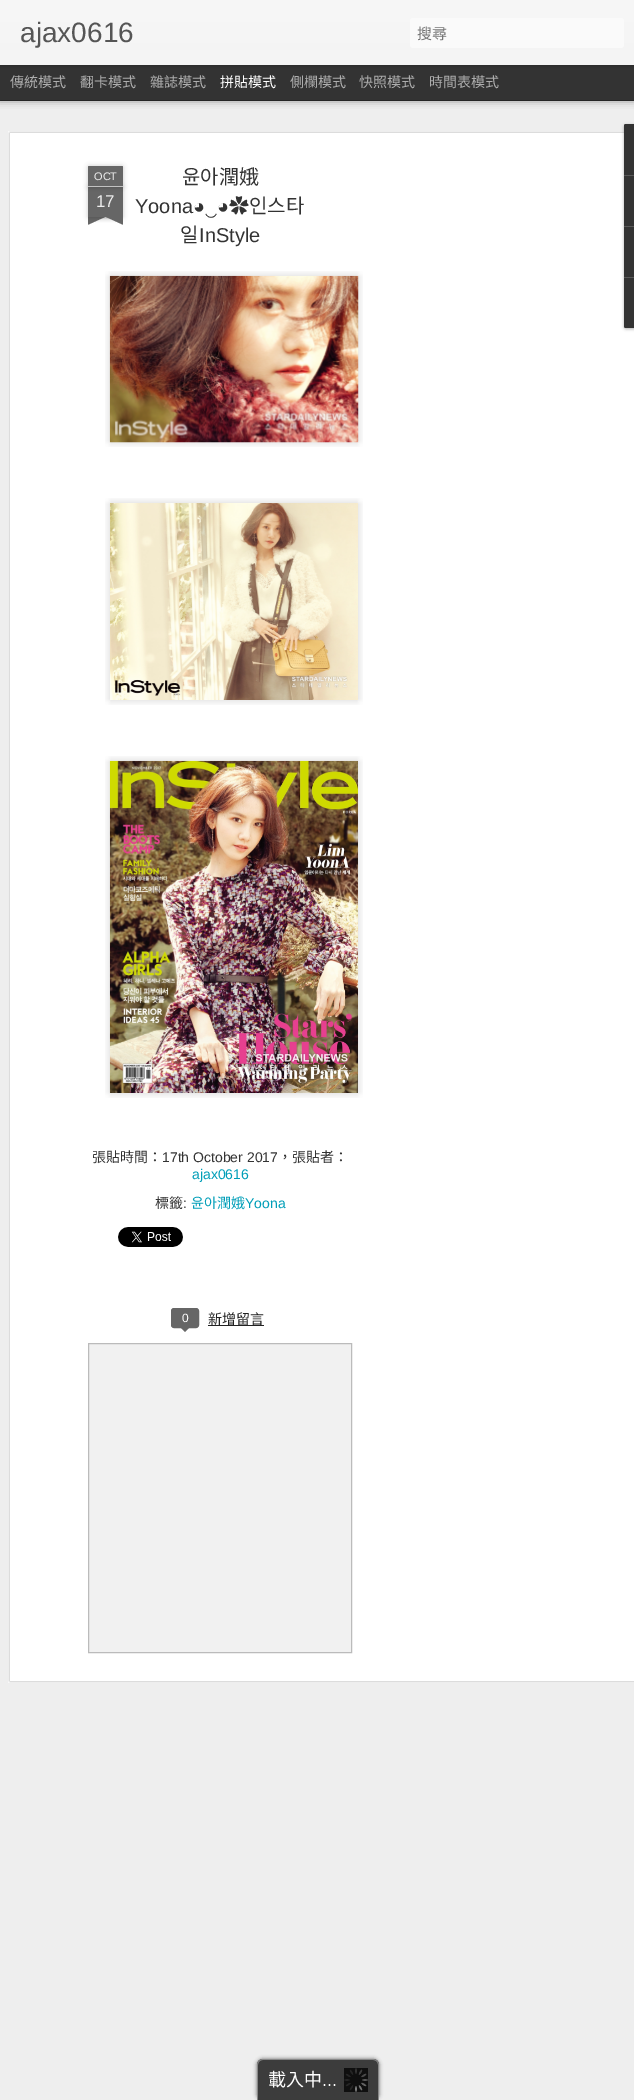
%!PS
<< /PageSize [634 2100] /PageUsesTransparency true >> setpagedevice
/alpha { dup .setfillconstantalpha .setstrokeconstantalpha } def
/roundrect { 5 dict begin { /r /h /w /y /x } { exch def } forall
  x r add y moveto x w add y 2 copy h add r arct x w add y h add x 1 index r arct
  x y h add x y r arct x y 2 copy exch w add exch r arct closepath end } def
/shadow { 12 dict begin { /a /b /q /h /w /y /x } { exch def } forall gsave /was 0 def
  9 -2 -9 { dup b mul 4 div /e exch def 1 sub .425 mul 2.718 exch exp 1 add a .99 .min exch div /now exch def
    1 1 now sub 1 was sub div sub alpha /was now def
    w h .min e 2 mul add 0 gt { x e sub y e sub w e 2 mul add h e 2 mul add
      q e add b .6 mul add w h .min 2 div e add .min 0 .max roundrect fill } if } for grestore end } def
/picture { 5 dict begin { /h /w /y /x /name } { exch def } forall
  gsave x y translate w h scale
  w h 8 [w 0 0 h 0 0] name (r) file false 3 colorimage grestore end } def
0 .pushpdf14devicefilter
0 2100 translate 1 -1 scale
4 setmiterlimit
0.2 setgray
0 0 634 2100 rectfill
0.933 setgray
0 101 634 1999 rectfill
0 setgray
0 65 634 35 0 4 0.5 shadow
0.2 setgray
0 65 634 35 rectfill
0 setgray
0 0 634 65 0 2.5 0.3 shadow
gsave newpath 0 0 moveto 634 0 lineto 634 65 lineto 0 65 lineto closepath clip newpath
<< /ShadingType 2 /ColorSpace /DeviceRGB /Coords [0 0 0 65] /Extend [true true] /Function << /FunctionType 2 /Domain [0 1] /C0 [0.969 0.969 0.969] /C1 [0.957 0.957 0.957] /N 1 >> >> shfill grestore
/LiberationSans-Regular [28 0 0 -28 0 0] selectfont
0.333 setgray
20 42 moveto (ajax0616) show
0.98 setgray
410 18 214 30 3 roundrect fill
/NotoSansCJKTC-Regular [15 0 0 -15 0 0] selectfont
0.459 setgray
417 39 moveto (搜尋) show
/NotoSansCJKTC-Regular [14 0 0 -14 0 0] selectfont
0.678 setgray
10 87 moveto (傳統模式) show
80 87 moveto (翻卡模式) show
150 87 moveto (雜誌模式) show
1 setgray
220 87 moveto (拼貼模式) show
0.678 setgray
290 87 moveto (側欄模式) show
359 87 moveto (快照模式) show
429 87 moveto (時間表模式) show
1 setgray
8 131 626 1552 rectfill
(img1.rgb) 8 131 626 1552 picture
0 setgray
88 187 35 30 0 2.5 0.2 shadow
0.4 setgray
88 187 35 30 rectfill
0 setgray
88 166 35 21 1 2.5 0.2 shadow
0.4 setgray
newpath 89 166 moveto 122 166 lineto 122.5 166 123 166.5 123 167 curveto 123 187 lineto 88 187 lineto 88 167 lineto 88 166.5 88.5 166 89 166 curveto closepath fill
0.761 setgray
88 186 35 1 rectfill
/LiberationSans-Regular [11 0 0 -11 0 0] selectfont
0.933 setgray
94 180 moveto (OCT) show
/LiberationSans-Regular [17 0 0 -17 0 0] selectfont
96 207 moveto (17) show
gsave
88 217 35 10 rectclip
0 setgray
79 207 50 10 0 2.5 0.2 shadow
grestore
gsave
88 217 35 10 rectclip
0.4 setgray
newpath 79 218 moveto 125 197 lineto 129 206 lineto 83 227 lineto closepath fill
grestore
gsave
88 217 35 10 rectclip
0 setgray
82 207 50 10 0 2.5 0.2 shadow
grestore
gsave
88 217 35 10 rectclip
0.4 setgray
newpath 86 197 moveto 132 218 lineto 128 227 lineto 82 206 lineto closepath fill
grestore
/NotoSansCJKTC-Regular [20 0 0 -20 0 0] selectfont
0.2 setgray
182 184 moveto (윤아潤娥) show
/LiberationSans-Regular [20 0 0 -20 0 0] selectfont
135 213 moveto (Yoona◕) show
217 213 moveto (◕) show
/NotoSansCJKTC-Regular [20 0 0 -20 0 0] selectfont
229 213 moveto (✿인스타) show
/NotoSans-Regular [20 0 0 -20 0 0] selectfont
205 213 moveto (‿) show
/NotoSansCJKTC-Regular [20 0 0 -20 0 0] selectfont
180 242 moveto (일) show
/LiberationSans-Regular [20 0 0 -20 0 0] selectfont
199 242 moveto (InStyle) show
(img2.rgb) 105 271 258 176 picture
(img3.rgb) 109 275 250 168 picture
(img4.rgb) 105 498 258 207 picture
(img5.rgb) 110 503 237 197 picture
(img6.rgb) 105 756 258 342 picture
(img7.rgb) 109 760 249 333 picture
/NotoSansCJKTC-Regular [14 0 0 -14 0 0] selectfont
92 1162 moveto (張貼時間：) show
/LiberationSans-Regular [14 0 0 -14 0 0] selectfont
162 1162 moveto (17th October 2017) show
/NotoSansCJKTC-Regular [14 0 0 -14 0 0] selectfont
278 1162 moveto (，張貼者：) show
/LiberationSans-Regular [14 0 0 -14 0 0] selectfont
0 0.62 0.722 setrgbcolor
192 1179 moveto (ajax0616) show
/NotoSansCJKTC-Regular [14 0 0 -14 0 0] selectfont
0.2 setgray
155 1208 moveto (標籤) show
/LiberationSans-Regular [14 0 0 -14 0 0] selectfont
183 1208 moveto (:) show
/NotoSansCJKTC-Regular [14 0 0 -14 0 0] selectfont
0 0.62 0.722 setrgbcolor
191 1208 moveto (윤아潤娥) show
/LiberationSans-Regular [14 0 0 -14 0 0] selectfont
245 1208 moveto (Yoona) show
(img8.rgb) 118 1227 65 20 picture
0.4 setgray
171.5 1308.5 27 19 2.5 roundrect gsave fill grestore
stroke
/LiberationSans-Regular [12 0 0 -12 0 0] selectfont
1 setgray
182 1322 moveto (0) show
0.4 setgray
newpath 180 1327 moveto 190 1327 lineto 185 1332 lineto closepath fill
0.133 setgray
208 1325 56 1 rectfill
/NotoSansCJKTC-Regular [14 0 0 -14 0 0] selectfont
208 1324 moveto (新增留言) show
0.945 setgray
newpath 88.5 1343.5 moveto 351.5 1343.5 lineto 351.5 1652.5 lineto 88.5 1652.5 lineto closepath gsave fill grestore
0.733 setgray
stroke
0 setgray
624 125 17 204 2 1.5 0.3 shadow
0.2 setgray
newpath 626 124 moveto 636 124 lineto 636 328 lineto 626 328 lineto 625 328 624 327 624 326 curveto 624 126 lineto 624 125 625 124 626 124 curveto closepath fill
newpath 626 124 moveto 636 124 lineto 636 175 lineto 624 175 lineto 624 126 lineto 624 125 625 124 626 124 curveto closepath fill
0.345 setgray
624 175 10 1 rectfill
624 226 10 1 rectfill
0.2 setgray
newpath 624 277 moveto 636 277 lineto 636 328 lineto 626 328 lineto 625 328 624 327 624 326 curveto closepath fill
0.345 setgray
624 277 10 1 rectfill
0.384 setgray
257 2059 122 41 6 2 1 shadow
0.235 setgray
newpath 263 2059 moveto 373 2059 lineto 376.5 2059 379 2061.5 379 2065 curveto 379 2100 lineto 257 2100 lineto 257 2065 lineto 257 2061.5 259.5 2059 263 2059 curveto closepath fill
0.533 setgray
newpath 263 2059 moveto 373 2059 lineto 376 2059 379 2062 379 2065 curveto 379 2100 lineto 257 2100 lineto 257 2065 lineto 257 2062 260 2059 263 2059 curveto closepath 263 2060 moveto 373 2060 lineto 376 2060 378 2062 378 2065 curveto 378 2100 lineto 258 2100 lineto 258 2065 lineto 258 2062 260 2060 263 2060 curveto closepath eofill
(img9.rgb) 344 2068 24 24 picture
/NotoSansCJKTC-Regular [18 0 0 -18 0 0] selectfont
1 setgray
268 2086 moveto (載入中) show
/LiberationSans-Regular [18 0 0 -18 0 0] selectfont
322 2086 moveto (...) show
.poppdf14devicefilter showpage
